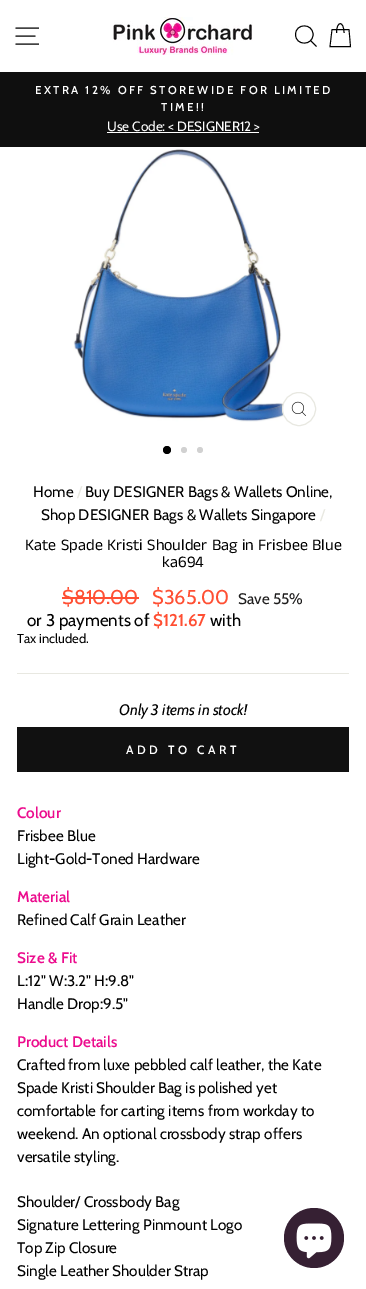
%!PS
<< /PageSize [366 1289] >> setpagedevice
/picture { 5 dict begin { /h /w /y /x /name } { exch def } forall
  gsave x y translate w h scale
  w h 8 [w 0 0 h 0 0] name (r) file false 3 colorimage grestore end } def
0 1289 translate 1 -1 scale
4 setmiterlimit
1 setgray
0 0 366 1289 rectfill
0 setgray
0.9 setlinewidth
newpath 15.5 28 moveto 39 28 lineto 15.5 36 moveto 35.5 36 lineto 15.5 44 moveto 39 44 lineto stroke
(img1.rgb) 113 17 140 38 picture
newpath 313 34.5 moveto 313 46 295.5 46 295.5 34.5 curveto 295.5 23 313 23 313 34.5 curveto closepath 316.5 46.5 moveto 310.5 40.5 lineto 336.5 33 moveto 336.5 20.5 344 20.5 344 33 curveto 332 29.5 moveto 349 29.5 lineto 350.5 46.5 lineto 330 46.5 lineto closepath stroke
0.059 setgray
0 72 366 75 rectfill
/Cabin-SemiBold [11.5 0 0 -11.5 0 0] selectfont
1 setgray
35 94 moveto 2.3 0 (EXTRA 12% OFF STOREWIDE FOR LIMITED) ashow
161 111 moveto 2.3 0 (TIME!!) ashow
/Cabin-Regular [13.5 0 0 -13.5 0 0] selectfont
107 131 moveto (Use Code: < DESIGNER12 >) show
107 132 152 1 rectfill
(img2.rgb) 73 149 214 273 picture
newpath 299 409 16.5 0 360 arc closepath gsave fill grestore
0.91 0.91 0.882 setrgbcolor
1 setlinewidth
stroke
(img3.rgb) 291 401 15 15 picture
0 setgray
newpath 167 450 4 0 360 arc closepath fill
0.82 setgray
newpath 184 450 3 0 360 arc closepath fill
newpath 200 450 3 0 360 arc closepath fill
/Cabin-Regular [15.25 0 0 -15.25 0 0] selectfont
0 setgray
33 497 moveto (Home) show
0.91 0.91 0.882 setrgbcolor
77 497 moveto (/) show
0 setgray
85 497 moveto (Buy DESIGNER Bags & Wallets Online,) show
41 520 moveto (Shop DESIGNER Bags & Wallets Singapore) show
0.91 0.91 0.882 setrgbcolor
320 520 moveto (/) show
/AnekTamil-Regular [16.1 0 0 -16.1 0 0] selectfont
0 setgray
25 550 moveto (Kate Spade Kristi Shoulder Bag in Frisbee Blue) show
162 567 moveto (ka694) show
/Cabin-Regular [20 0 0 -20 0 0] selectfont
1 0.31 0.2 setrgbcolor
62 604 moveto ($810.00) show
62 597 77 2 rectfill
152 604 moveto ($365.00) show
/Cabin-Regular [15.25 0 0 -15.25 0 0] selectfont
0.114 0.11 0.11 setrgbcolor
238 604 moveto (Save 55%) show
/Cabin-Regular [17 0 0 -17 0 0] selectfont
0 setgray
27 626 moveto (or 3 payments of) show
/Cabin-SemiBold [17 0 0 -17 0 0] selectfont
1 0.31 0.2 setrgbcolor
153 626 moveto ($121.67) show
/Cabin-Regular [17 0 0 -17 0 0] selectfont
0 setgray
210 626 moveto (with) show
/Cabin-Regular [13 0 0 -13 0 0] selectfont
17 643 moveto (Tax included.) show
0.91 0.91 0.882 setrgbcolor
17 673 332 1 rectfill
/Cabin-Italic [15.25 0 0 -15.25 0 0] selectfont
0 setgray
119 715 moveto (Only 3 items in stock!) show
0.067 setgray
17 727 332 45 rectfill
/Cabin-SemiBold [12 0 0 -12 0 0] selectfont
1 setgray
126 754 moveto 3.6 0 (ADD TO CART) ashow
/Cabin-SemiBold [15.25 0 0 -15.25 0 0] selectfont
0.925 0.043 0.553 setrgbcolor
17 818 moveto (Colour) show
/Cabin-Regular [15.25 0 0 -15.25 0 0] selectfont
0 setgray
17 841 moveto (Frisbee Blue) show
17 864 moveto (Light-Gold-Toned Hardware) show
/Cabin-SemiBold [15.25 0 0 -15.25 0 0] selectfont
0.925 0.043 0.553 setrgbcolor
17 902 moveto (Material) show
/Cabin-Regular [15.25 0 0 -15.25 0 0] selectfont
0 setgray
17 925 moveto (Refined Calf Grain Leather) show
/Cabin-SemiBold [15.25 0 0 -15.25 0 0] selectfont
0.925 0.043 0.553 setrgbcolor
17 963 moveto (Size & Fit) show
/Cabin-Regular [15.25 0 0 -15.25 0 0] selectfont
0 setgray
17 986 moveto (L:12" W:3.2" H:9.8") show
17 1009 moveto (Handle Drop:9.5") show
/Cabin-SemiBold [15.25 0 0 -15.25 0 0] selectfont
0.925 0.043 0.553 setrgbcolor
17 1047 moveto (Product Details) show
/Cabin-Regular [15.25 0 0 -15.25 0 0] selectfont
0 setgray
17 1070 moveto (Crafted from luxe pebbled calf leather, the Kate) show
17 1093 moveto (Spade Kristi Shoulder Bag is polished yet) show
17 1116 moveto (comfortable for carting items from workday to) show
17 1139 moveto (weekend. An optional crossbody strap offers) show
17 1162 moveto (versatile styling.) show
17 1207 moveto (Shoulder/ Crossbody Bag) show
17 1230 moveto (Signature Lettering Pinmount Logo) show
17 1253 moveto (Top Zip Closure) show
17 1276 moveto (Single Leather Shoulder Strap) show
0.212 0.125 0.2 setrgbcolor
newpath 314 1238 30 0 360 arc closepath fill
(img4.rgb) 296 1223 36 36 picture
showpage
